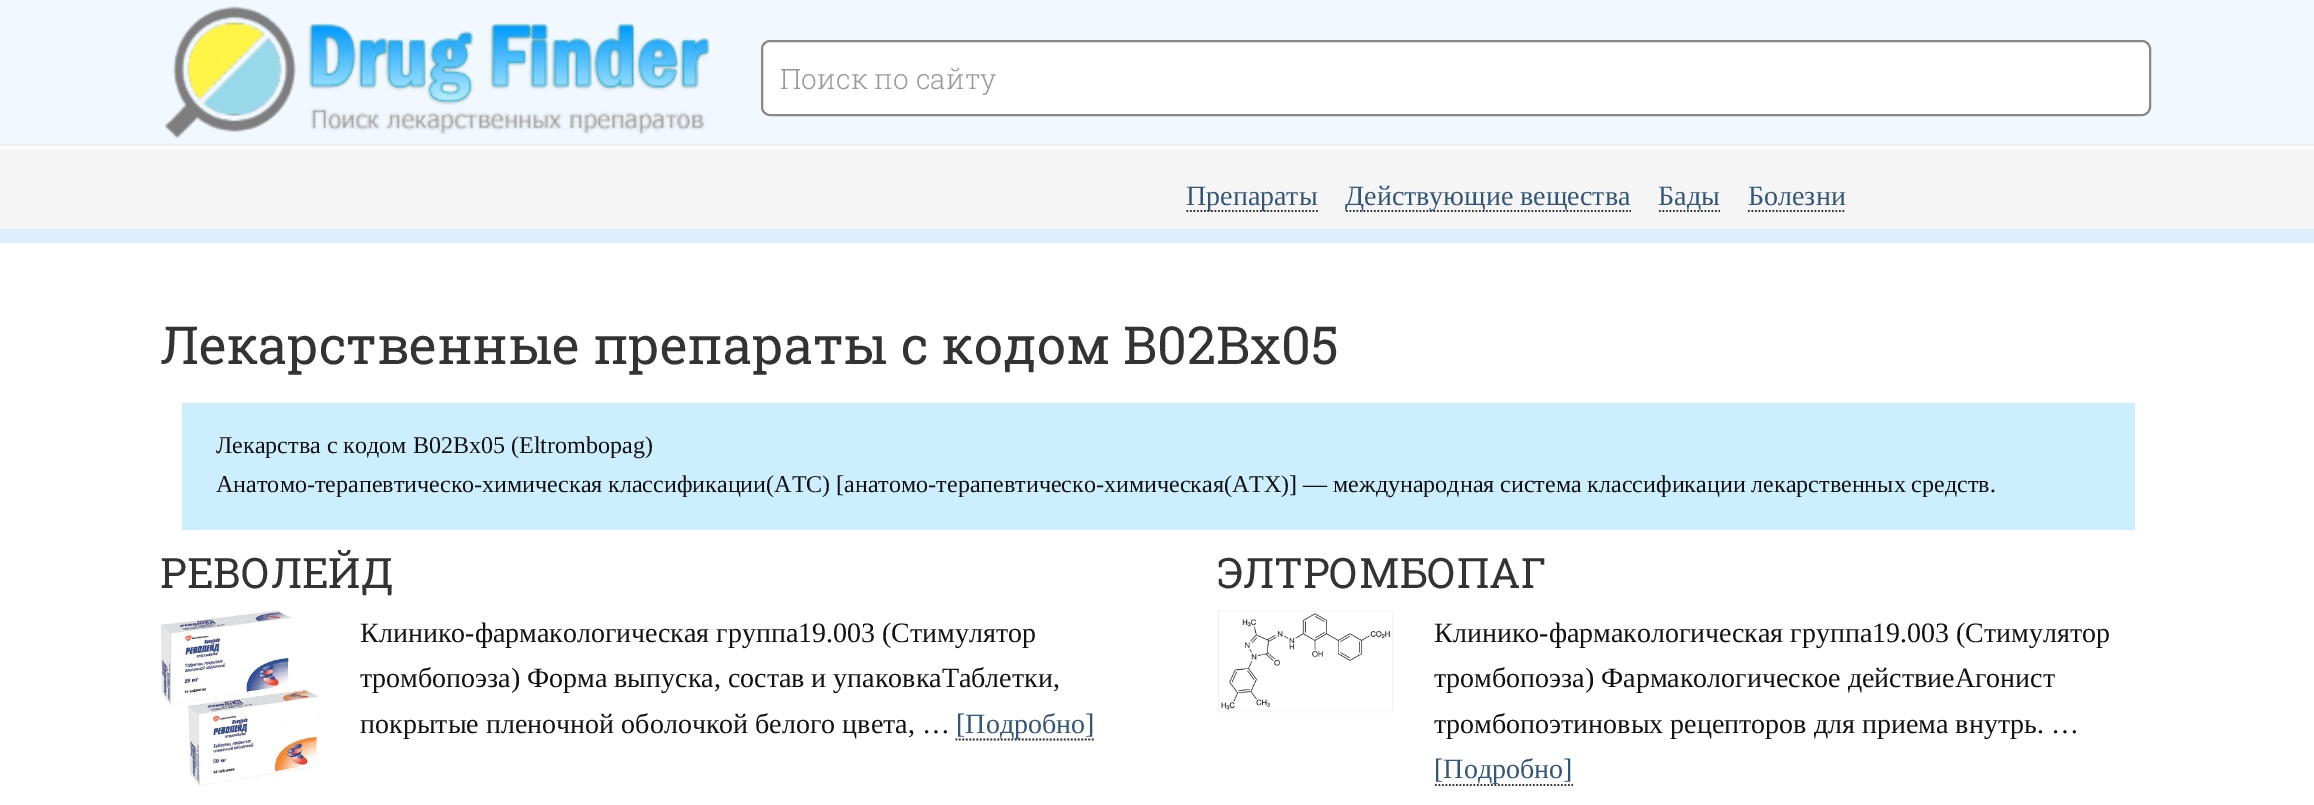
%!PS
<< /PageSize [2314 805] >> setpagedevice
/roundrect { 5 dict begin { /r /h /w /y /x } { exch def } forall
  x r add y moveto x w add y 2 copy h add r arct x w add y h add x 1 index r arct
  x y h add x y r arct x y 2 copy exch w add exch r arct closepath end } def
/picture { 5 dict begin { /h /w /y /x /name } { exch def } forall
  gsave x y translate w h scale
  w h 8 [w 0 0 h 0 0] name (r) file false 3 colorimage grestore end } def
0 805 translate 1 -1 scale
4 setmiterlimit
1 setgray
0 0 2314 805 rectfill
0.945 0.976 1 setrgbcolor
0 0 2314 144 rectfill
0.933 setgray
0 144 2314 2 rectfill
(img1.rgb) 164 6 546 133 picture
1 setgray
762 41 1388 74 8 roundrect gsave fill grestore
0.533 setgray
2 setlinewidth
stroke
gsave
781 60 1351 36 rectclip
/RobotoSlab-Light [28 0 0 -28 0 0] selectfont
0.6 setgray
780 89 moveto (Поиск по сайту) show
grestore
0.961 setgray
0 149 2314 80 rectfill
0.867 0.933 1 setrgbcolor
0 229 2314 14 rectfill
0.2 setgray
1.8 setlinewidth
[1.75 1.75] 0 setdash
newpath 1186.5 211 moveto 1318 211 lineto stroke
/LiberationSerif-Regular [28 0 0 -28 0 0] selectfont
0.2 0.333 0.467 setrgbcolor
1186 205 moveto (Препараты) show
0.2 setgray
newpath 1346 211 moveto 1631 211 lineto stroke
0.2 0.333 0.467 setrgbcolor
1345 205 moveto (Действующие вещества) show
0.2 setgray
newpath 1659 211 moveto 1720 211 lineto stroke
0.2 0.333 0.467 setrgbcolor
1658 205 moveto (Бады) show
1748 205 moveto (Болезни) show
0.2 setgray
newpath 1748 211 moveto 1846 211 lineto stroke
/RobotoSlab-Regular [52.5 0 0 -52.5 0 0] selectfont
160 364 moveto (Лекарственные препараты с кодом B02Bx05) show
0.8 0.933 1 setrgbcolor
182 403 1953 127 rectfill
/LiberationSerif-Regular [24.08 0 0 -24.08 0 0] selectfont
0.067 setgray
216 453 moveto (Лекарства с кодом B02Bx05 \(Eltrombopag\)) show
216 492 moveto -0.25 0 32 (Анатомо-терапевтическо-химическая классификации\(АТС\) [анатомо-терапевтическо-химическая\(АТХ\)] — международная система классификации лекарственных средств.) widthshow
/RobotoSlab-Regular [42 0 0 -42 0 0] selectfont
0.2 setgray
160 588 moveto (РЕВОЛЕЙД) show
(img2.rgb) 161 610 158 176 picture
/LiberationSerif-Regular [28 0 0 -28 0 0] selectfont
0.067 setgray
360 642 moveto (Клинико-фармакологическая группа19.003 \(Стимулятор) show
360 687 moveto (тромбопоэза\) Форма выпуска, состав и упаковкаТаблетки,) show
360 733 moveto (покрытые пленочной оболочкой белого цвета, …) show
0.2 setgray
newpath 955.5 739.5 moveto 1094 739.5 lineto stroke
0.2 0.333 0.467 setrgbcolor
956 733 moveto ([Подробно]) show
/RobotoSlab-Regular [42 0 0 -42 0 0] selectfont
0.2 setgray
1217 588 moveto (ЭЛТРОМБОПАГ) show
(img3.rgb) 1218 610 175 103 picture
/LiberationSerif-Regular [28 0 0 -28 0 0] selectfont
0.067 setgray
1434 642 moveto (Клинико-фармакологическая группа19.003 \(Стимулятор) show
1434 687 moveto (тромбопоэза\) Фармакологическое действиеАгонист) show
1434 733 moveto (тромбопоэтиновых рецепторов для приема внутрь. …) show
0.2 0.333 0.467 setrgbcolor
1434 778 moveto ([Подробно]) show
0.2 setgray
newpath 1435 785 moveto 1573 785 lineto stroke
showpage
